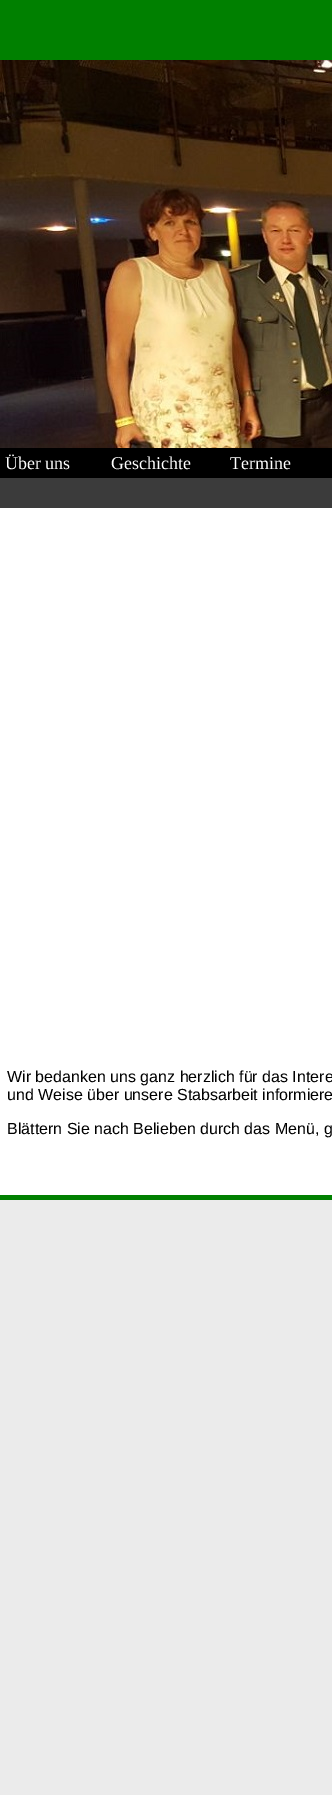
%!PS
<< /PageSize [332 1795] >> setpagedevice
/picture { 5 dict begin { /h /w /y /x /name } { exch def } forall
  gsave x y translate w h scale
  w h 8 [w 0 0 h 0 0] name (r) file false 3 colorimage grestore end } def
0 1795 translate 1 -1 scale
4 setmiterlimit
0.922 setgray
0 0 332 1795 rectfill
0 0.502 0 setrgbcolor
0 0 332 60 rectfill
(img1.rgb) 0 60 332 388 picture
0 setgray
0 448 332 30 rectfill
/LiberationSerif-Regular [18 0 0 -18 0 0] selectfont
1 setgray
5 469 moveto (Über uns) show
111 469 moveto (Geschichte) show
230 469 moveto (Termine) show
0.231 setgray
0 478 332 30 rectfill
1 setgray
0 508 332 687 rectfill
/LiberationSans-Regular [16 0 0 -16 0 0] selectfont
0 setgray
7 1082 moveto (Wir bedanken uns ganz herzlich für das Intere) show
7 1100 moveto (und Weise über unsere Stabsarbeit informiere) show
7 1134 moveto (Blättern Sie nach Belieben durch das Menü, g) show
0 0.502 0 setrgbcolor
0 1195 332 5 rectfill
showpage
